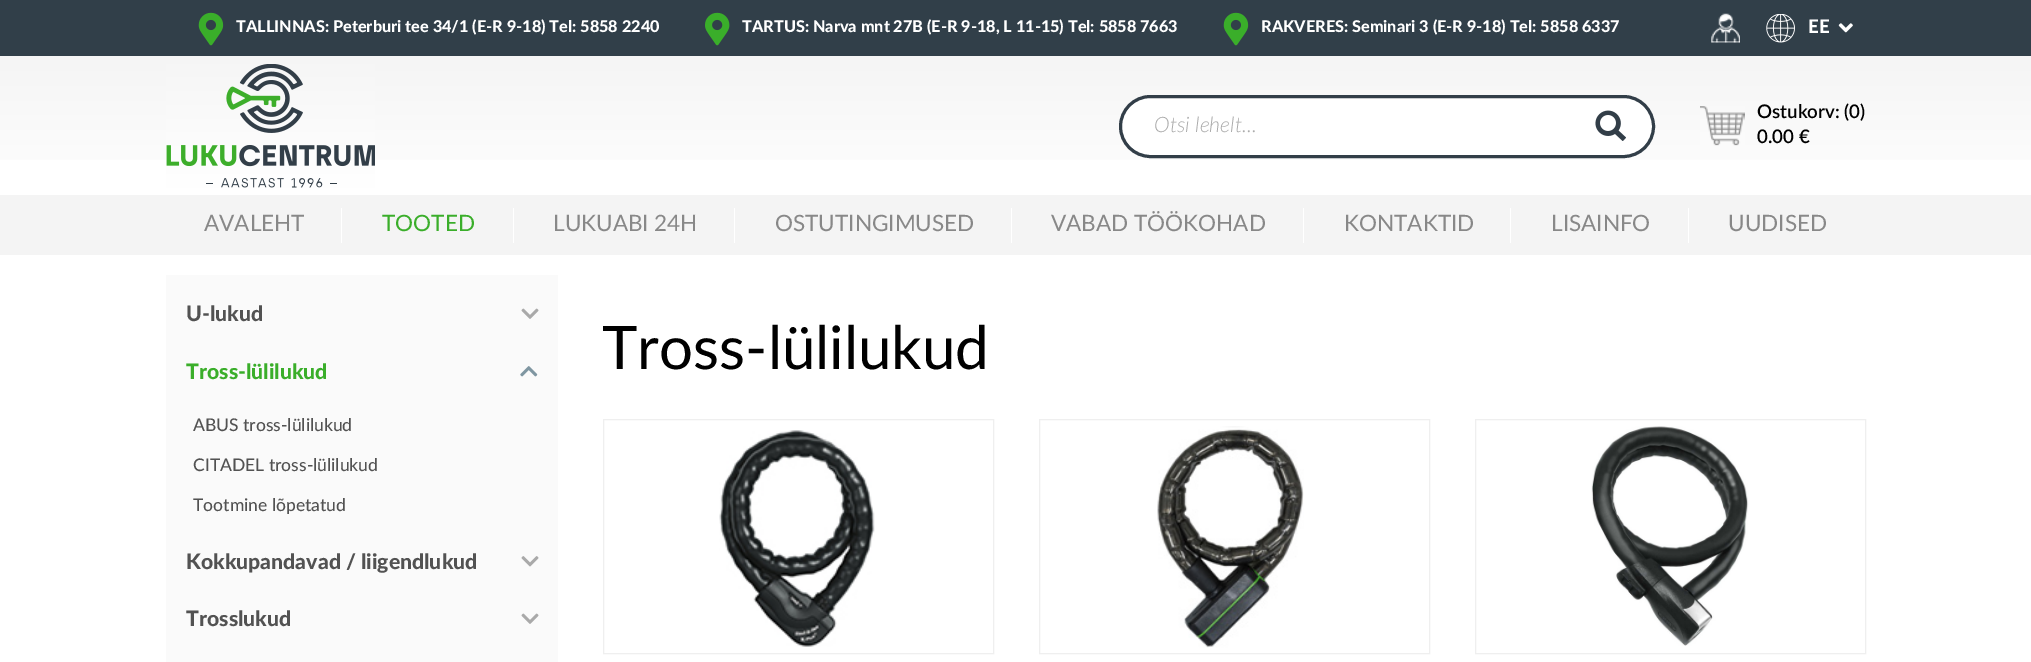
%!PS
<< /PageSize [2031 662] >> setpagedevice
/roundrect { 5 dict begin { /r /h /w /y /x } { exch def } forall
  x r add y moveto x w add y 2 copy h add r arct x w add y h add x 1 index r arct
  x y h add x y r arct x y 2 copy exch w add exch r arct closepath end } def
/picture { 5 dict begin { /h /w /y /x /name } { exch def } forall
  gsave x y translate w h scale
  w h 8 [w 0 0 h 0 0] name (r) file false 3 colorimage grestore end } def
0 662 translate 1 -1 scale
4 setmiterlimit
1 setgray
0 0 2031 662 rectfill
0.192 0.247 0.286 setrgbcolor
0 0 2031 56 rectfill
(img1.rgb) 198 12 26 34 picture
/Lato-Black [16.25 0 0 -16.25 0 0] selectfont
1 setgray
236 32 moveto (TALLINNAS: Peterburi tee 34/1 \(E-R 9-18\) Tel: 5858 2240) show
(img2.rgb) 705 12 25 34 picture
742 32 moveto (TARTUS: Narva mnt 27B \(E-R 9-18, L 11-15\) Tel: 5858 7663) show
(img1.rgb) 1223 12 26 34 picture
1261 32 moveto (RAKVERES: Seminari 3 \(E-R 9-18\) Tel: 5858 6337) show
(img3.rgb) 1711 13 29 30 picture
(img4.rgb) 1766 14 29 29 picture
/Lato-Black [18.75 0 0 -18.75 0 0] selectfont
1808 33 moveto (EE) show
(img5.rgb) 1838 23 15 10 picture
gsave newpath 0 56 moveto 2031 56 lineto 2031 160 lineto 0 160 lineto closepath clip newpath
<< /ShadingType 2 /ColorSpace /DeviceRGB /Coords [1016 56 1016 195] /Extend [true true] /Function << /FunctionType 2 /Domain [0 1] /C0 [0.961 0.961 0.961] /C1 [1 1 1] /N 1 >> >> shfill grestore
(img6.rgb) 166 64 209 124 picture
1120.5 96.5 533 60 30 roundrect gsave fill grestore
0.196 0.243 0.282 setrgbcolor
3 setlinewidth
stroke
/Lato-LightItalic [21.25 0 0 -21.25 0 0] selectfont
0.671 setgray
1154 132 moveto (Otsi lehelt...) show
(img7.rgb) 1595 110 31 31 picture
(img8.rgb) 1700 106 45 40 picture
/Lato-SemiBold [18.75 0 0 -18.75 0 0] selectfont
0 setgray
1757 118 moveto (Ostukorv: \(0\)) show
1757 143 moveto (0.00 €) show
0.957 setgray
0 195 2031 60 rectfill
/Lato-Regular [22.5 0 0 -22.5 0 0] selectfont
0.533 setgray
204 231 moveto (AVALEHT) show
1 setgray
341 208 1 35 rectfill
0.227 0.682 0.165 setrgbcolor
382 231 moveto (TOOTED) show
1 setgray
513 208 1 35 rectfill
0.533 setgray
553 231 moveto (LUKUABI 24H) show
1 setgray
734 208 1 35 rectfill
0.533 setgray
775 231 moveto (OSTUTINGIMUSED) show
1 setgray
1011 208 1 35 rectfill
0.533 setgray
1051 231 moveto (VABAD TÖÖKOHAD) show
1 setgray
1303 208 1 35 rectfill
0.533 setgray
1344 231 moveto (KONTAKTID) show
1 setgray
1510 208 1 35 rectfill
0.533 setgray
1551 231 moveto (LISAINFO) show
1 setgray
1688 208 1 35 rectfill
0.533 setgray
1728 231 moveto (UUDISED) show
0.98 setgray
166 275 392 387 rectfill
/Lato-Black [21.25 0 0 -21.25 0 0] selectfont
0.322 setgray
186 321 moveto (U-lukud) show
(img9.rgb) 521 308 18 11 picture
0.227 0.682 0.165 setrgbcolor
186 379 moveto (Tross-lülilukud) show
(img10.rgb) 520 366 18 11 picture
/Lato-Medium [17.5 0 0 -17.5 0 0] selectfont
0.322 setgray
193 431 moveto (ABUS tross-lülilukud) show
193 471 moveto (CITADEL tross-lülilukud) show
193 511 moveto (Tootmine lõpetatud) show
/Lato-Black [21.25 0 0 -21.25 0 0] selectfont
186 569 moveto (Kokkupandavad / liigendlukud) show
(img11.rgb) 521 556 18 11 picture
186 626 moveto (Trosslukud) show
(img9.rgb) 521 613 18 11 picture
/Lato-Regular [60 0 0 -60 0 0] selectfont
0 setgray
602 369 moveto (Tross-lülilukud) show
0.937 setgray
1 setlinewidth
603.5 419.5 390 234 rectstroke
(img12.rgb) 719 430 156 217 picture
1039.5 419.5 390 234 rectstroke
(img13.rgb) 1157 426 147 222 picture
1475.5 419.5 390 234 rectstroke
(img14.rgb) 1591 426 158 220 picture
showpage
